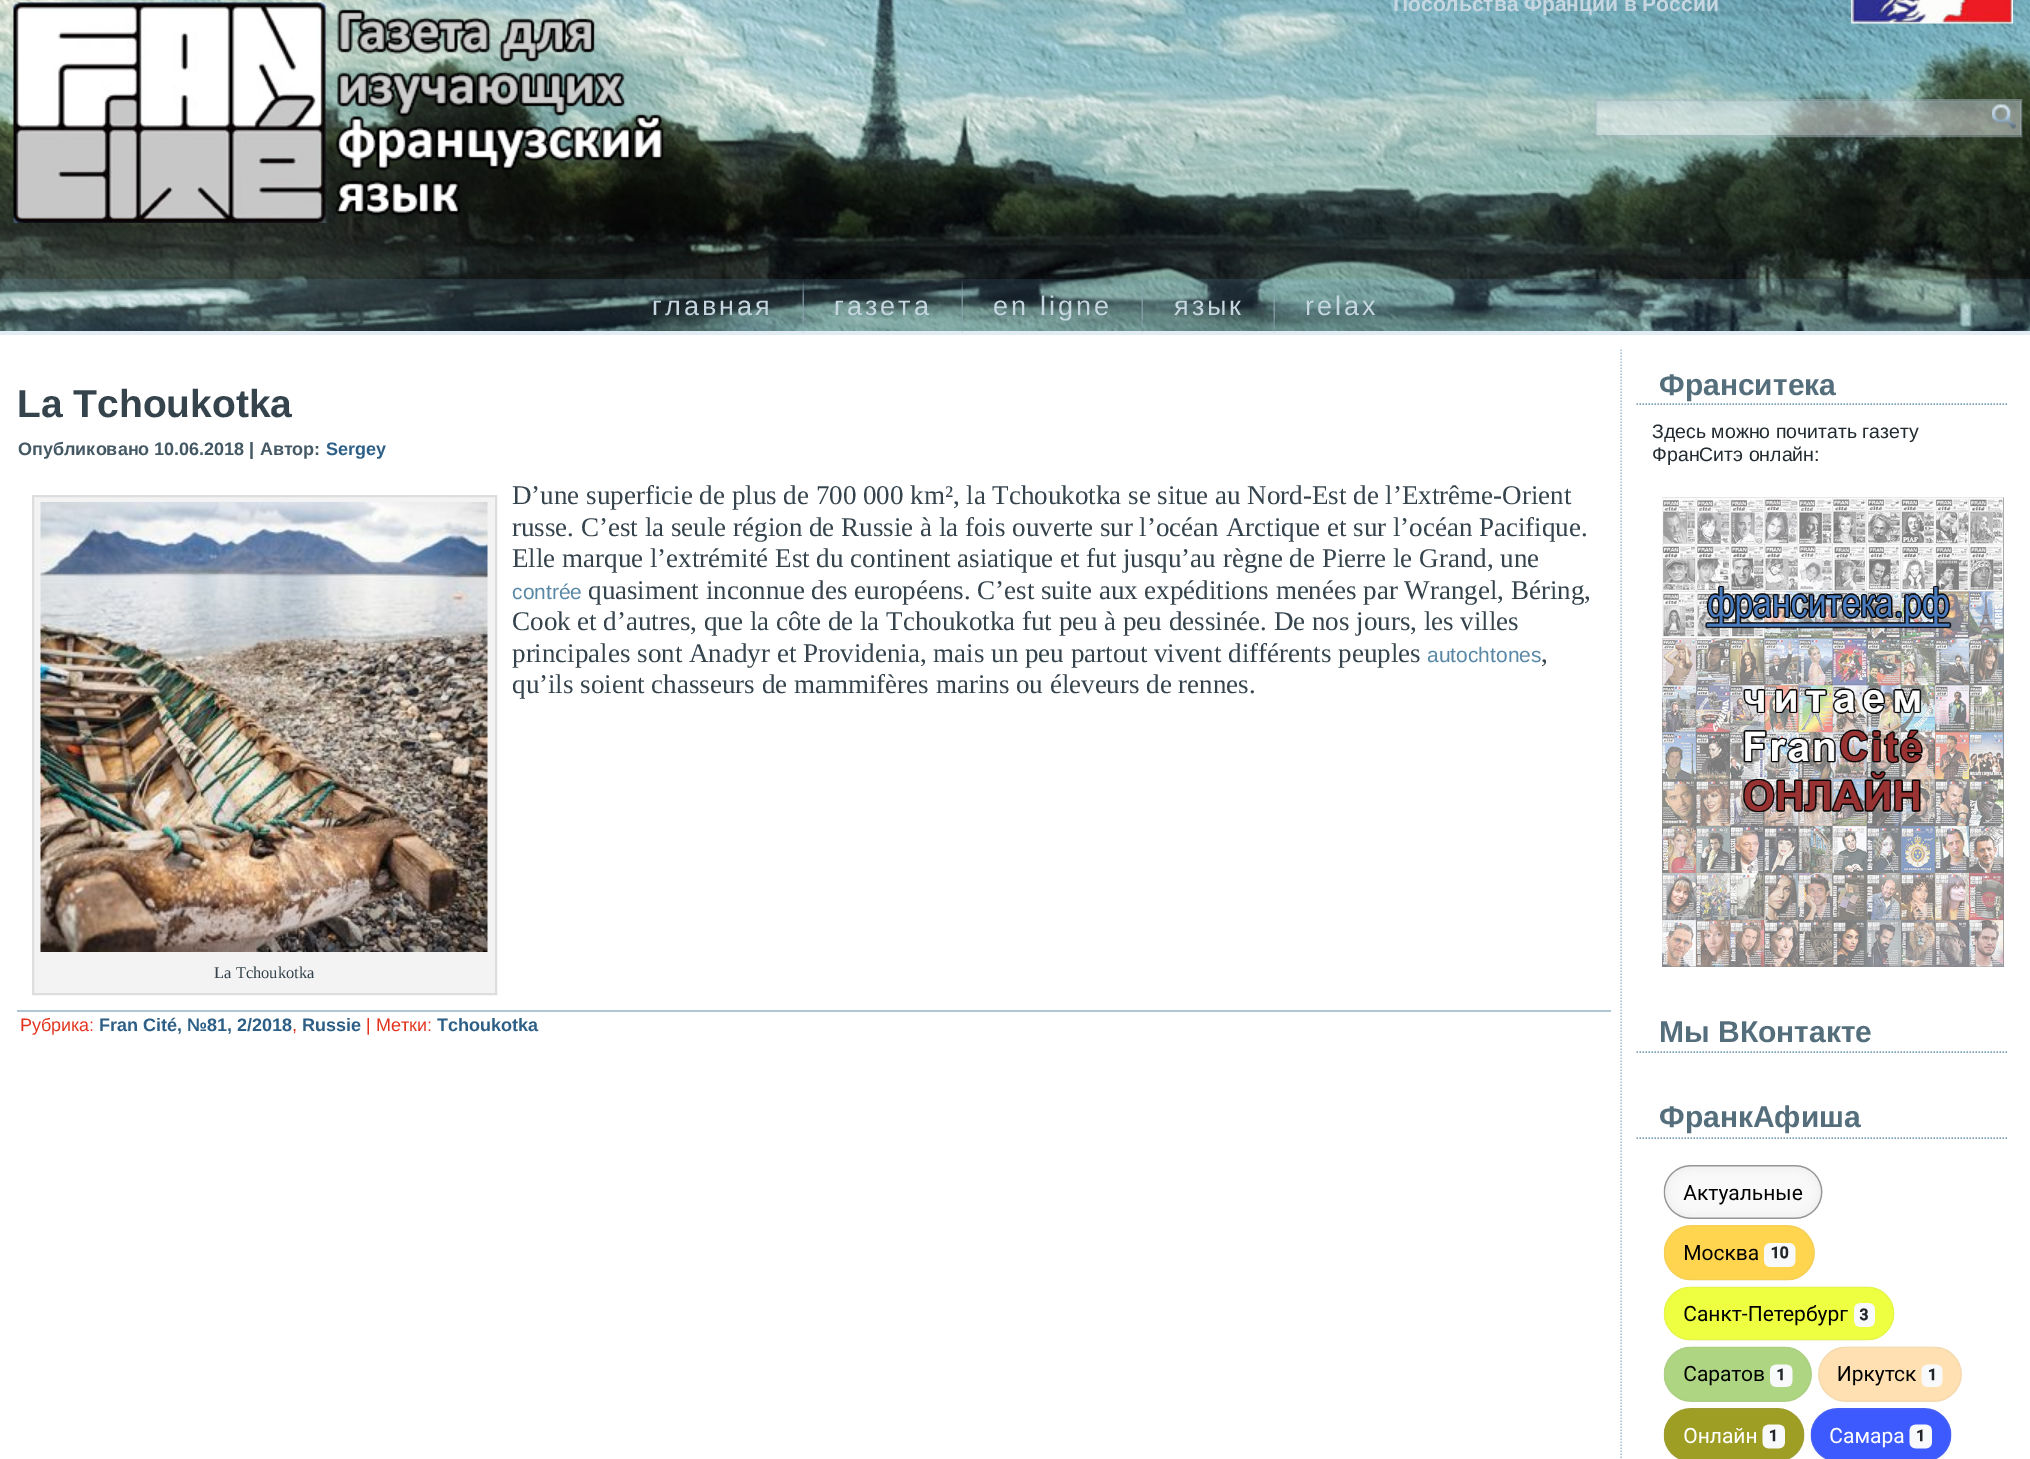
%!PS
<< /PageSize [2030 1459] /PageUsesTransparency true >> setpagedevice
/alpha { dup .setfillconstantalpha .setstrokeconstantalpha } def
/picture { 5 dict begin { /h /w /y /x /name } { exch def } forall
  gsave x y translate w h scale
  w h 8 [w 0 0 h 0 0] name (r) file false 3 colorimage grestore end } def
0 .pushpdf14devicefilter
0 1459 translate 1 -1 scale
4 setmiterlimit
1 setgray
0 0 2030 1459 rectfill
(img1.rgb) 0 0 2030 331 picture
(img2.rgb) 13 2 652 221 picture
/LiberationSans-Bold [21 0 0 -21 0 0] selectfont
0.78 0.843 0.882 setrgbcolor
1393 11 moveto (Посольства Франции в России) show
(img3.rgb) 1851 0 162 24 picture
0.5 alpha
0.655 0.725 0.765 setrgbcolor
2 setlinewidth
1596 100 425 36 rectstroke
1 alpha
(img4.rgb) 1992 104 24 25 picture
0.15 alpha
gsave newpath 0 279 moveto 2030 279 lineto 2030 335 lineto 0 335 lineto closepath clip newpath
<< /ShadingType 2 /ColorSpace /DeviceRGB /Coords [1016 279 1016 335] /Extend [true true] /Function << /FunctionType 3 /Domain [0 1] /Functions [<< /FunctionType 2 /Domain [0 1] /C0 [0.416 0.635 0.804] /C1 [0.416 0.635 0.804] /N 1 >> << /FunctionType 2 /Domain [0 1] /C0 [0.416 0.635 0.804] /C1 [0.384 0.616 0.796] /N 1 >> << /FunctionType 2 /Domain [0 1] /C0 [0.384 0.616 0.796] /C1 [0.251 0.533 0.749] /N 1 >> << /FunctionType 2 /Domain [0 1] /C0 [0.251 0.533 0.749] /C1 [0.231 0.49 0.69] /N 1 >>] /Bounds [0.5 0.6 0.88] /Encode [0 1 0 1 0 1 0 1] >> >> shfill grestore
/LiberationSans-Regular [27 0 0 -27 0 0] selectfont
1 alpha
0.78 0.843 0.882 setrgbcolor
652 315 moveto 3 0 (главная) ashow
(img5.rgb) 802 280 2 54 picture
834 315 moveto 3 0 (газета) ashow
(img6.rgb) 961 280 2 54 picture
993 315 moveto 3 0 (en ligne) ashow
(img7.rgb) 1141 283 2 51 picture
1174 315 moveto 3 0 (язык) ashow
(img8.rgb) 1273 286 2 48 picture
1305 315 moveto 3 0 (relax) ashow
/LiberationSans-Bold [39 0 0 -39 0 0] selectfont
0.204 0.263 0.298 setrgbcolor
17 417 moveto (La Tchoukotka) show
/LiberationSans-Bold [18 0 0 -18 0 0] selectfont
0.267 0.345 0.392 setrgbcolor
18 455 moveto (Опубликовано 10.06.2018 | Автор:) show
0.176 0.373 0.525 setrgbcolor
326 455 moveto (Sergey) show
/LiberationSerif-Regular [27 0 0 -27 0 0] selectfont
0.204 0.263 0.298 setrgbcolor
512 504 moveto (D’une superficie de plus de 700 000 km², la Tchoukotka se situe au Nord-Est de l’Extrême-Orient) show
512 536 moveto (russe. C’est la seule région de Russie à la fois ouverte sur l’océan Arctique et sur l’océan Pacifique.) show
512 567 moveto (Elle marque l’extrémité Est du continent asiatique et fut jusqu’au règne de Pierre le Grand, une) show
/LiberationSans-Regular [21 0 0 -21 0 0] selectfont
0.349 0.533 0.651 setrgbcolor
512 599 moveto (contrée) show
/LiberationSerif-Regular [27 0 0 -27 0 0] selectfont
0.204 0.263 0.298 setrgbcolor
588 599 moveto (quasiment inconnue des européens. C’est suite aux expéditions menées par Wrangel, Béring,) show
512 630 moveto (Cook et d’autres, que la côte de la Tchoukotka fut peu à peu dessinée. De nos jours, les villes) show
512 662 moveto (principales sont Anadyr et Providenia, mais un peu partout vivent différents peuples) show
/LiberationSans-Regular [21 0 0 -21 0 0] selectfont
0.349 0.533 0.651 setrgbcolor
1427 662 moveto (autochtones) show
/LiberationSerif-Regular [27 0 0 -27 0 0] selectfont
0.204 0.263 0.298 setrgbcolor
1541 662 moveto (,) show
512 693 moveto (qu’ils soient chasseurs de mammifères marins ou éleveurs de rennes.) show
0.953 setgray
newpath 33 496 moveto 496 496 lineto 496 994 lineto 33 994 lineto closepath gsave fill grestore
0.867 setgray
stroke
(img9.rgb) 40 502 448 450 picture
/LiberationSerif-Regular [16.5 0 0 -16.5 0 0] selectfont
0.204 0.263 0.298 setrgbcolor
214 978 moveto (La Tchoukotka) show
0.686 0.776 0.831 setrgbcolor
17 1010 1594 2 rectfill
/LiberationSans-Regular [18 0 0 -18 0 0] selectfont
0.886 0.204 0.114 setrgbcolor
20 1031 moveto (Рубрика:) show
/LiberationSans-Bold [18 0 0 -18 0 0] selectfont
0.176 0.373 0.525 setrgbcolor
99 1031 moveto (Fran Cité, №81, 2/2018) show
/LiberationSans-Regular [18 0 0 -18 0 0] selectfont
0.886 0.204 0.114 setrgbcolor
292 1031 moveto (,) show
/LiberationSans-Bold [18 0 0 -18 0 0] selectfont
0.176 0.373 0.525 setrgbcolor
302 1031 moveto (Russie) show
/LiberationSans-Regular [18 0 0 -18 0 0] selectfont
0.886 0.204 0.114 setrgbcolor
366 1031 moveto (| Метки:) show
/LiberationSans-Bold [18 0 0 -18 0 0] selectfont
0.176 0.373 0.525 setrgbcolor
437 1031 moveto (Tchoukotka) show
0.686 0.776 0.831 setrgbcolor
1.5 setlinewidth
[1.5 1.5] 0 setdash
newpath 1621 349.5 moveto 1621 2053.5 lineto stroke
0.478 0.627 0.722 setrgbcolor
newpath 1636.5 404 moveto 2008.5 404 lineto stroke
/LiberationSans-Bold [30 0 0 -30 0 0] selectfont
0.333 0.431 0.486 setrgbcolor
1659 395 moveto (Франситека) show
/LiberationSans-Regular [19.5 0 0 -19.5 0 0] selectfont
0.129 0.169 0.192 setrgbcolor
1652 438 moveto (Здесь можно почитать газету) show
1652 461 moveto (ФранСитэ онлайн:) show
(img10.rgb) 1662 497 342 470 picture
0.478 0.627 0.722 setrgbcolor
newpath 1636.5 1052 moveto 2008.5 1052 lineto stroke
/LiberationSans-Bold [30 0 0 -30 0 0] selectfont
0.333 0.431 0.486 setrgbcolor
1659 1042 moveto (Мы ВКонтакте) show
0.478 0.627 0.722 setrgbcolor
newpath 1636.5 1138 moveto 2008.5 1138 lineto stroke
0.333 0.431 0.486 setrgbcolor
1659 1127 moveto (ФранкАфиша) show
(img11.rgb) 1663 1165 299 294 picture
.poppdf14devicefilter showpage
